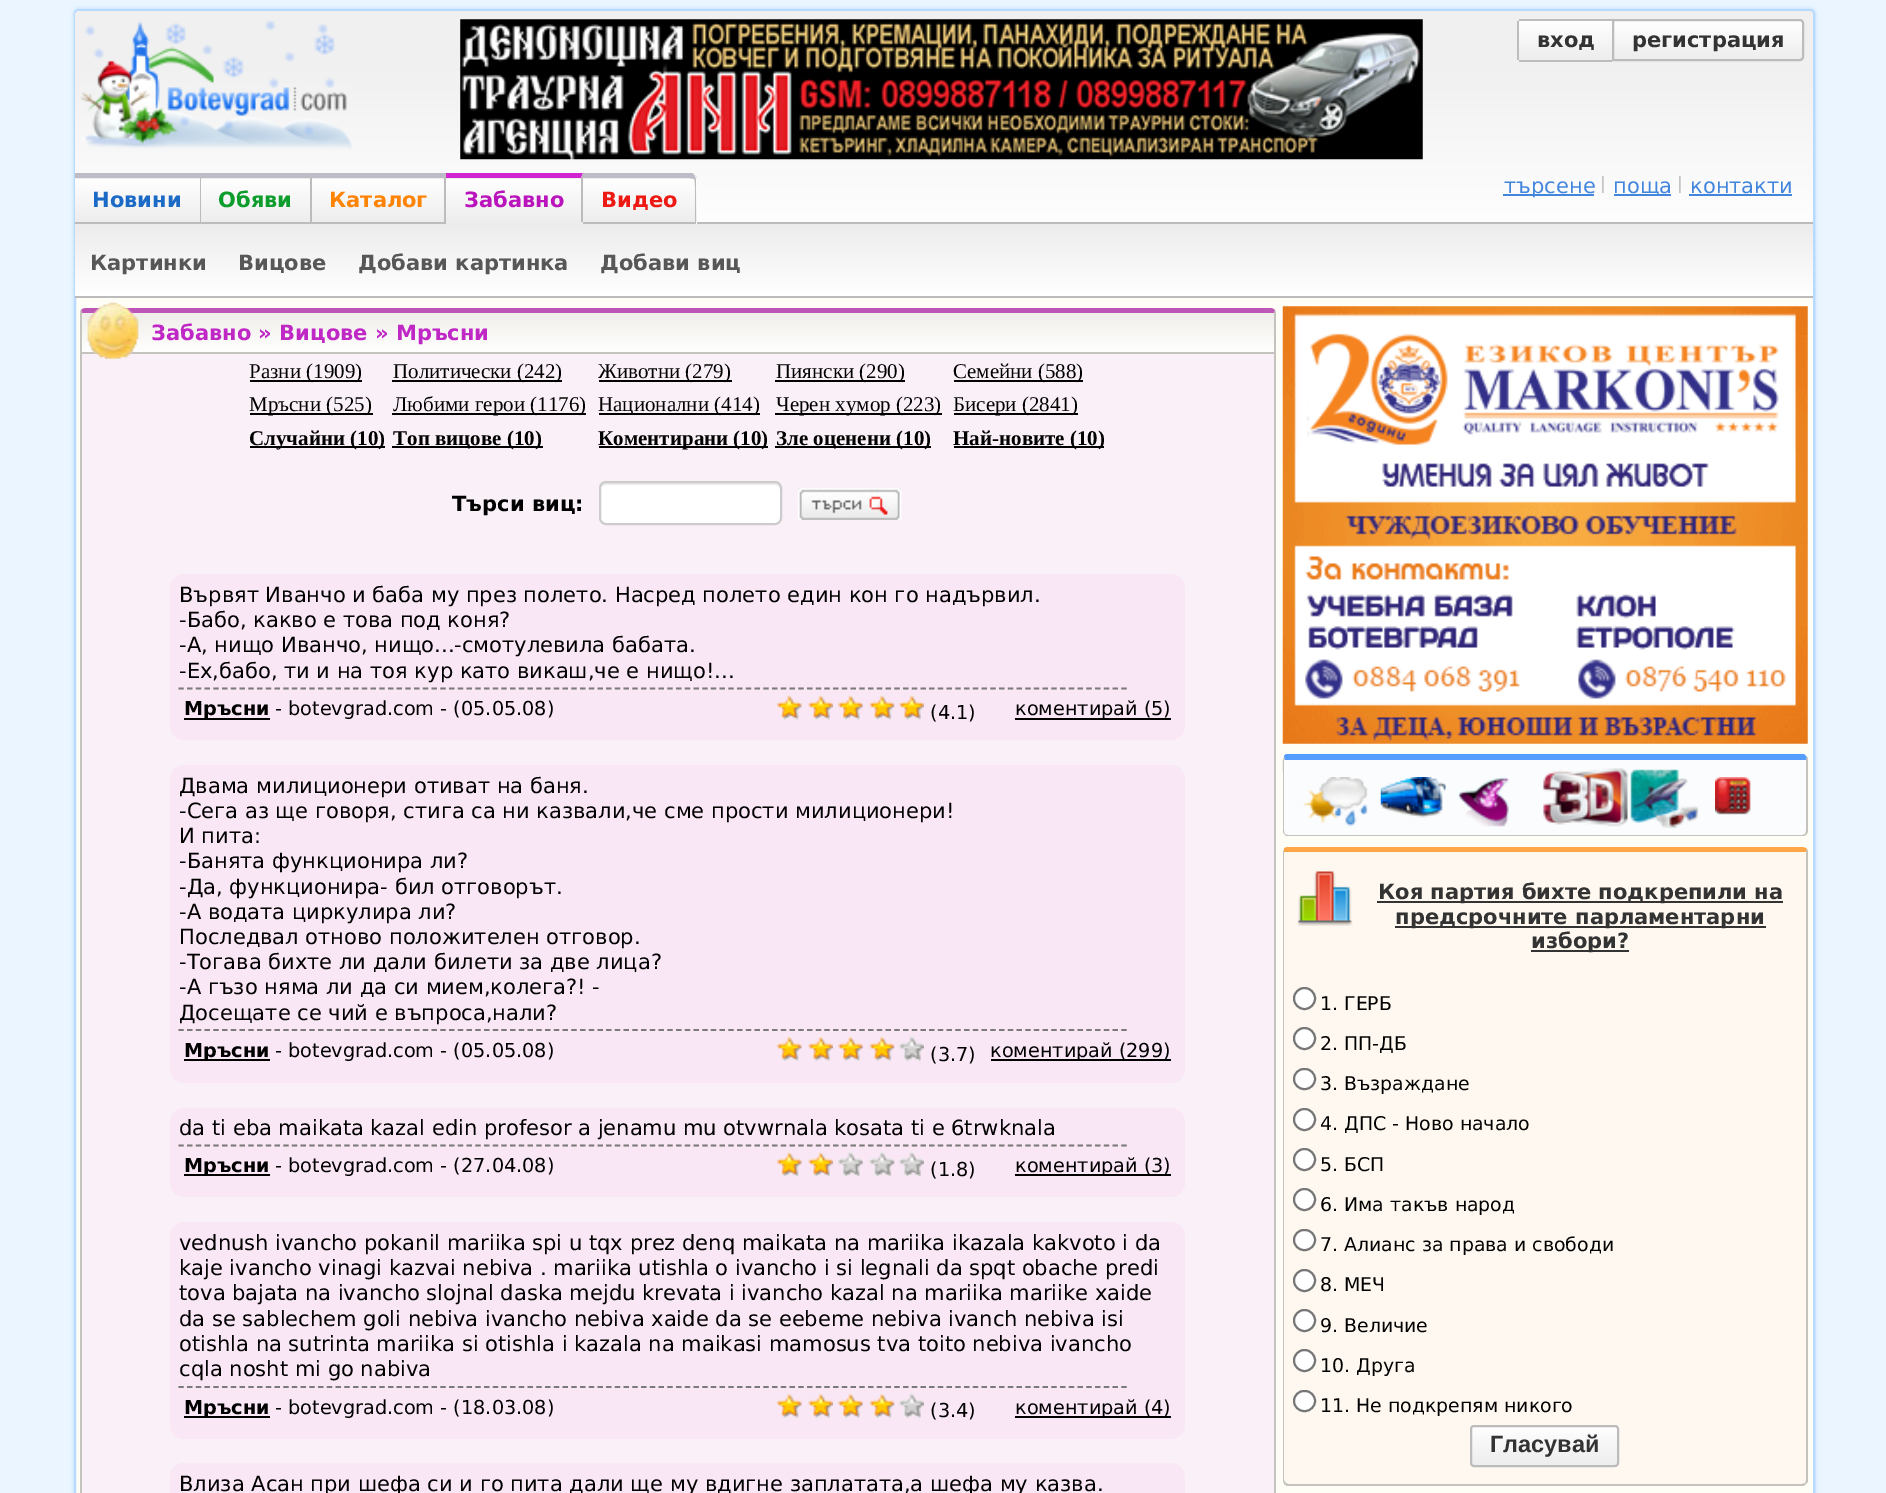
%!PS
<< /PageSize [1886 1493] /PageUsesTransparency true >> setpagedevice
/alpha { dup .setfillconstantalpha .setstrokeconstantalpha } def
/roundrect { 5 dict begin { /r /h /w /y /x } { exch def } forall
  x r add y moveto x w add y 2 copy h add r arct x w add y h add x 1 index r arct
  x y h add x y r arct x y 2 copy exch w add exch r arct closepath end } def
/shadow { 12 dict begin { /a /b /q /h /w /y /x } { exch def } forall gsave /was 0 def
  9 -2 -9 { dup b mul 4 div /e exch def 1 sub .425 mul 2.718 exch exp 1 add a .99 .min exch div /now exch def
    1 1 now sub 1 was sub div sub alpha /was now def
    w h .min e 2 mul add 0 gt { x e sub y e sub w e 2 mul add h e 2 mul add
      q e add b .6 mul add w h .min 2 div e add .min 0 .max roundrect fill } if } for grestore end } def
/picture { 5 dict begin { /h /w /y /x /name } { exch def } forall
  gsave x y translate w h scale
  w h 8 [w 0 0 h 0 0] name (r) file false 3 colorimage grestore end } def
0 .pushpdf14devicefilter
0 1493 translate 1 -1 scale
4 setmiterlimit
0.918 0.961 1 setrgbcolor
0 0 1886 1493 rectfill
0.69 0.839 1 setrgbcolor
74 9 1741 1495 5 2 1 shadow
1 0.996 0.965 setrgbcolor
75 10 1739 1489 4 roundrect gsave fill grestore
0.722 0.855 1 setrgbcolor
2 setlinewidth
stroke
gsave 75 11 1738 213 5 roundrect clip newpath
<< /ShadingType 2 /ColorSpace /DeviceRGB /Coords [944 10 944 224] /Extend [true true] /Function << /FunctionType 3 /Domain [0 1] /Functions [<< /FunctionType 2 /Domain [0 1] /C0 [0.941 0.941 0.941] /C1 [0.941 0.941 0.941] /N 1 >> << /FunctionType 2 /Domain [0 1] /C0 [0.941 0.941 0.941] /C1 [0.996 0.996 0.996] /N 1 >>] /Bounds [0.26] /Encode [0 1 0 1] >> >> shfill grestore
(img1.rgb) 80 20 272 130 picture
(img2.rgb) 460 19 963 141 picture
gsave
newpath 1521 19 moveto 1612 19 lineto 1612 61 lineto 1521 61 lineto 1519 61 1517 59 1517 57 curveto 1517 23 lineto 1517 21 1519 19 1521 19 curveto closepath clip newpath
gsave newpath 1517 19 moveto 1519 19 lineto 1519 21 lineto 1517 21 lineto closepath clip newpath
<< /ShadingType 2 /ColorSpace /DeviceRGB /Coords [1565 -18 1565 21] /Extend [true true] /Function << /FunctionType 2 /Domain [0 1] /C0 [1 1 1] /C1 [0.929 0.929 0.929] /N 1 >> >> shfill grestore
grestore
gsave newpath 1519 21 moveto 1612 21 lineto 1612 60 lineto 1519 60 lineto closepath clip newpath
<< /ShadingType 2 /ColorSpace /DeviceRGB /Coords [1565 21 1565 60] /Extend [true true] /Function << /FunctionType 2 /Domain [0 1] /C0 [1 1 1] /C1 [0.929 0.929 0.929] /N 1 >> >> shfill grestore
0.737 setgray
1519 19 93 2 rectfill
1519 60 93 2 rectfill
1517 21 2 39 rectfill
/DejaVuSans-Bold [21 0 0 -21 0 0] selectfont
0.2 setgray
1537 47 moveto (вход) show
gsave
newpath 1612 19 moveto 1800 19 lineto 1802 19 1804 21 1804 23 curveto 1804 57 lineto 1804 59 1802 61 1800 61 curveto 1612 61 lineto closepath clip newpath
gsave newpath 1614 21 moveto 1804 21 lineto 1804 60 lineto 1614 60 lineto closepath clip newpath
<< /ShadingType 2 /ColorSpace /DeviceRGB /Coords [1708 21 1708 60] /Extend [true true] /Function << /FunctionType 2 /Domain [0 1] /C0 [1 1 1] /C1 [0.929 0.929 0.929] /N 1 >> >> shfill grestore
grestore
0.737 setgray
newpath 1613 20 moveto 1800 20 lineto 1801.5 20 1803 21.5 1803 23 curveto 1803 57 lineto 1803 58.5 1801.5 60 1800 60 curveto 1613 60 lineto closepath stroke
0.2 setgray
1632 47 moveto (регистрация) show
gsave newpath 75 173 moveto 201 173 lineto 201 179 lineto 75 179 lineto closepath clip newpath
<< /ShadingType 2 /ColorSpace /DeviceRGB /Coords [137 135 137 179] /Extend [true true] /Function << /FunctionType 2 /Domain [0 1] /C0 [1 1 1] /C1 [0.929 0.929 0.929] /N 1 >> >> shfill grestore
gsave newpath 75 179 moveto 200 179 lineto 200 222 lineto 75 222 lineto closepath clip newpath
<< /ShadingType 2 /ColorSpace /DeviceRGB /Coords [137 179 137 222] /Extend [true true] /Function << /FunctionType 2 /Domain [0 1] /C0 [1 1 1] /C1 [0.929 0.929 0.929] /N 1 >> >> shfill grestore
0.741 0.733 0.776 setrgbcolor
newpath 75 173 moveto 201 173 lineto 200 178 lineto 75 178 lineto closepath fill
0.737 setgray
newpath 201 173 moveto 201 224 lineto 200 222 lineto 200 178 lineto closepath fill
75 222 126 2 rectfill
0.106 0.416 0.776 setrgbcolor
92 207 moveto (Новини) show
gsave newpath 201 173 moveto 312 173 lineto 312 179 lineto 201 179 lineto closepath clip newpath
<< /ShadingType 2 /ColorSpace /DeviceRGB /Coords [256 135 256 179] /Extend [true true] /Function << /FunctionType 2 /Domain [0 1] /C0 [1 1 1] /C1 [0.929 0.929 0.929] /N 1 >> >> shfill grestore
gsave newpath 201 179 moveto 310 179 lineto 310 222 lineto 201 222 lineto closepath clip newpath
<< /ShadingType 2 /ColorSpace /DeviceRGB /Coords [256 179 256 222] /Extend [true true] /Function << /FunctionType 2 /Domain [0 1] /C0 [1 1 1] /C1 [0.929 0.929 0.929] /N 1 >> >> shfill grestore
0.741 0.733 0.776 setrgbcolor
newpath 201 173 moveto 312 173 lineto 310 178 lineto 201 178 lineto closepath fill
0.737 setgray
newpath 312 173 moveto 312 224 lineto 310 222 lineto 310 178 lineto closepath fill
201 222 111 2 rectfill
0.051 0.616 0.173 setrgbcolor
218 207 moveto (Обяви) show
gsave newpath 312 173 moveto 446 173 lineto 446 179 lineto 312 179 lineto closepath clip newpath
<< /ShadingType 2 /ColorSpace /DeviceRGB /Coords [378 135 378 179] /Extend [true true] /Function << /FunctionType 2 /Domain [0 1] /C0 [1 1 1] /C1 [0.929 0.929 0.929] /N 1 >> >> shfill grestore
gsave newpath 312 179 moveto 444 179 lineto 444 222 lineto 312 222 lineto closepath clip newpath
<< /ShadingType 2 /ColorSpace /DeviceRGB /Coords [378 179 378 222] /Extend [true true] /Function << /FunctionType 2 /Domain [0 1] /C0 [1 1 1] /C1 [0.929 0.929 0.929] /N 1 >> >> shfill grestore
0.741 0.733 0.776 setrgbcolor
newpath 312 173 moveto 446 173 lineto 444 178 lineto 312 178 lineto closepath fill
0.737 setgray
newpath 446 173 moveto 446 224 lineto 444 222 lineto 444 178 lineto closepath fill
312 222 134 2 rectfill
1 0.514 0.016 setrgbcolor
329 207 moveto (Каталог) show
gsave newpath 446 173 moveto 583 173 lineto 583 179 lineto 446 179 lineto closepath clip newpath
<< /ShadingType 2 /ColorSpace /DeviceRGB /Coords [514 135 514 179] /Extend [true true] /Function << /FunctionType 2 /Domain [0 1] /C0 [1 1 1] /C1 [0.929 0.929 0.929] /N 1 >> >> shfill grestore
gsave newpath 446 179 moveto 581 179 lineto 581 222 lineto 446 222 lineto closepath clip newpath
<< /ShadingType 2 /ColorSpace /DeviceRGB /Coords [514 179 514 222] /Extend [true true] /Function << /FunctionType 2 /Domain [0 1] /C0 [1 1 1] /C1 [0.929 0.929 0.929] /N 1 >> >> shfill grestore
0.82 0.145 0.82 setrgbcolor
newpath 446 173 moveto 583 173 lineto 581 178 lineto 446 178 lineto closepath fill
0.737 setgray
newpath 583 173 moveto 583 224 lineto 581 222 lineto 581 178 lineto closepath fill
0.925 setgray
446 222 137 2 rectfill
0.729 0.078 0.737 setrgbcolor
464 207 moveto (Забавно) show
gsave
newpath 583 173 moveto 690 173 lineto 694 173 697 176 697 180 curveto 697 224 lineto 583 224 lineto closepath clip newpath
gsave newpath 583 173 moveto 697 173 lineto 697 179 lineto 583 179 lineto closepath clip newpath
<< /ShadingType 2 /ColorSpace /DeviceRGB /Coords [639 135 639 179] /Extend [true true] /Function << /FunctionType 2 /Domain [0 1] /C0 [1 1 1] /C1 [0.929 0.929 0.929] /N 1 >> >> shfill grestore
grestore
gsave newpath 583 179 moveto 697 179 lineto 697 222 lineto 583 222 lineto closepath clip newpath
<< /ShadingType 2 /ColorSpace /DeviceRGB /Coords [639 179 639 222] /Extend [true true] /Function << /FunctionType 2 /Domain [0 1] /C0 [1 1 1] /C1 [0.929 0.929 0.929] /N 1 >> >> shfill grestore
0.741 0.733 0.776 setrgbcolor
newpath 583 178 moveto 583 173 lineto 692 173 lineto 693 174 695 175 695 177 curveto 694 179 lineto 690 178 lineto closepath fill
0.737 setgray
newpath 694 222 moveto 695 222 lineto 695 217 696 180 694 179 curveto 695 177 lineto 696 180 lineto 696 224 lineto closepath fill
newpath 583 224 moveto 696 224 lineto 694 222 lineto 583 222 lineto closepath fill
0.929 0.102 0.075 setrgbcolor
601 207 moveto (Видео) show
0.259 0.522 0.863 setrgbcolor
1503 194 91 2 rectfill
/DejaVuSans-Regular [21 0 0 -21 0 0] selectfont
1504 193 moveto (търсене) show
/DejaVuSans-Regular [17 0 0 -17 0 0] selectfont
0.69 setgray
1600 189 moveto (|) show
0.259 0.522 0.863 setrgbcolor
1614 194 57 2 rectfill
/DejaVuSans-Regular [21 0 0 -21 0 0] selectfont
1613 193 moveto (поща) show
/DejaVuSans-Regular [17 0 0 -17 0 0] selectfont
0.69 setgray
1677 189 moveto (|) show
/DejaVuSans-Regular [21 0 0 -21 0 0] selectfont
0.259 0.522 0.863 setrgbcolor
1690 193 moveto (контакти) show
1689 194 103 2 rectfill
gsave newpath 75 224 moveto 1813 224 lineto 1813 296 lineto 75 296 lineto closepath clip newpath
<< /ShadingType 2 /ColorSpace /DeviceRGB /Coords [944 224 944 296] /Extend [true true] /Function << /FunctionType 2 /Domain [0 1] /C0 [0.925 0.925 0.925] /C1 [1 1 1] /N 1 >> >> shfill grestore
0.737 setgray
697 222 1116 2 rectfill
75 296 1738 2 rectfill
/DejaVuSans-Bold [21 0 0 -21 0 0] selectfont
0.341 setgray
90 270 moveto (Картинки) show
238 270 moveto (Вицове) show
358 270 moveto (Добави картинка) show
600 270 moveto (Добави виц) show
0.98 0.941 0.969 setrgbcolor
newpath 86 313 moveto 1274 313 lineto 1274 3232 lineto 1274 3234 1272 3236 1270 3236 curveto 86 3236 lineto 84 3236 82 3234 82 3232 curveto 82 313 lineto closepath fill
0.745 0.337 0.718 setrgbcolor
newpath 86 308 moveto 84 308 82 309 81 310 curveto 82 313 lineto 1274 313 lineto 1275 310 lineto 1274 309 1272 308 1270 308 curveto closepath fill
0.769 0.765 0.745 setrgbcolor
newpath 1276 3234 moveto 1274 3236 lineto 1273 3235 lineto 1274 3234 1274 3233 1274 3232 curveto 1274 313 lineto 1275 310 lineto 1276 312 lineto closepath fill
newpath 80 311 moveto 81 310 lineto 82 313 lineto 82 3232 lineto 83 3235 lineto 82 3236 lineto 80 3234 lineto closepath fill
gsave newpath 82 313 moveto 1274 313 lineto 1274 352 lineto 82 352 lineto closepath clip newpath
<< /ShadingType 2 /ColorSpace /DeviceRGB /Coords [678 313 678 352] /Extend [true true] /Function << /FunctionType 2 /Domain [0 1] /C0 [0.937 0.933 0.914] /C1 [1 1 1] /N 1 >> >> shfill grestore
82 352 1192 2 rectfill
(img3.rgb) 87 302 52 57 picture
0.753 0.157 0.776 setrgbcolor
151 340 moveto (Забавно » Вицове » Мръсни) show
0 setgray
250 380 112 2 rectfill
/LiberationSerif-Regular [21 0 0 -21 0 0] selectfont
249 378 moveto (Разни \(1909\)) show
392 380 170 2 rectfill
393 378 moveto (Политически \(242\)) show
599 380 133 2 rectfill
598 378 moveto (Животни \(279\)) show
775 380 130 2 rectfill
776 378 moveto (Пиянски \(290\)) show
954 380 129 2 rectfill
953 378 moveto (Семейни \(588\)) show
250 413 123 2 rectfill
249 411 moveto (Мръсни \(525\)) show
392 413 194 2 rectfill
393 411 moveto (Любими герои \(1176\)) show
599 413 161 2 rectfill
598 411 moveto (Национални \(414\)) show
775 413 167 2 rectfill
776 411 moveto (Черен хумор \(223\)) show
954 413 124 2 rectfill
953 411 moveto (Бисери \(2841\)) show
250 446 135 2 rectfill
/LiberationSerif-Bold [21 0 0 -21 0 0] selectfont
249 445 moveto (Случайни \(10\)) show
392 446 151 2 rectfill
393 445 moveto (Топ вицове \(10\)) show
599 446 169 2 rectfill
598 445 moveto (Коментирани \(10\)) show
775 446 156 2 rectfill
776 445 moveto (Зле оценени \(10\)) show
954 446 150 2 rectfill
953 445 moveto (Най-новите \(10\)) show
/DejaVuSans-Bold [21 0 0 -21 0 0] selectfont
452 511 moveto (Търси виц:) show
1 setgray
599 481 183 44 7 roundrect fill
0.925 setgray
newpath 606 485 moveto 775 485 lineto 782 485 780 496 780 500 curveto 780 521 lineto 781 520 781 519 781 518 curveto 781 488 lineto 781 485 779 483 776 483 curveto 605 483 lineto 602 483 600 485 600 488 curveto 600 490 lineto 600 487 603 485 606 485 curveto closepath fill
0.8 setgray
600 482 181 42 6 roundrect stroke
(img4.rgb) 798 488 104 32 picture
0.98 0.906 0.961 setrgbcolor
170 574 1015 166 14 roundrect fill
/DejaVuSans-Regular [21 0 0 -21 0 0] selectfont
0 setgray
179 602 moveto (Вървят Иванчо и баба му през полето. Насред полето един кон го надървил.) show
179 627 moveto (-Бабо, какво е това под коня?) show
179 652 moveto (-А, нищо Иванчо, нищо...-смотулевила бабата.) show
179 678 moveto (-Ех,бабо, ти и на тоя кур като викаш,че е нищо!...) show
0.478 setgray
1.8 setlinewidth
[5.25 3.48] 0 setdash
newpath 178.5 688.5 moveto 1127 688.5 lineto stroke
0 setgray
184 718 86 2 rectfill
/DejaVuSans-Bold [19.25 0 0 -19.25 0 0] selectfont
184 715 moveto (Мръсни) show
/DejaVuSans-Regular [19.25 0 0 -19.25 0 0] selectfont
275 715 moveto (- botevgrad.com - \(05.05.08\)) show
(img5.rgb) 777 694 25 26 picture
(img6.rgb) 808 694 25 26 picture
(img7.rgb) 838 694 25 26 picture
(img8.rgb) 869 694 26 26 picture
(img9.rgb) 899 694 25 26 picture
930 719 moveto (\(4.1\)) show
1015 718 156 2 rectfill
1015 715 moveto (коментирай \(5\)) show
0.98 0.906 0.961 setrgbcolor
170 765 1015 318 14 roundrect fill
/DejaVuSans-Regular [21 0 0 -21 0 0] selectfont
0 setgray
179 793 moveto (Двама милиционери отиват на баня.) show
179 818 moveto (-Сега аз ще говоря, стига са ни казвали,че сме прости милиционери!) show
179 843 moveto (И пита:) show
179 868 moveto (-Банята функционира ли?) show
179 894 moveto (-Да, функционира- бил отговорът.) show
179 919 moveto (-А водата циркулира ли?) show
179 944 moveto (Последвал отново положителен отговор.) show
179 969 moveto (-Тогава бихте ли дали билети за две лица?) show
179 994 moveto (-А гъзо няма ли да си мием,колега?! -) show
179 1020 moveto (Досещате се чий е въпроса,нали?) show
0.478 setgray
newpath 178.5 1030 moveto 1127 1030 lineto stroke
0 setgray
184 1059 86 2 rectfill
/DejaVuSans-Bold [19.25 0 0 -19.25 0 0] selectfont
184 1057 moveto (Мръсни) show
/DejaVuSans-Regular [19.25 0 0 -19.25 0 0] selectfont
275 1057 moveto (- botevgrad.com - \(05.05.08\)) show
(img10.rgb) 777 1036 25 25 picture
(img11.rgb) 808 1036 25 25 picture
(img12.rgb) 838 1036 25 25 picture
(img13.rgb) 869 1036 26 25 picture
(img14.rgb) 899 1036 25 25 picture
930 1061 moveto (\(3.7\)) show
991 1059 180 2 rectfill
990 1057 moveto (коментирай \(299\)) show
0.98 0.906 0.961 setrgbcolor
170 1108 1015 89 14 roundrect fill
/DejaVuSans-Regular [21 0 0 -21 0 0] selectfont
0 setgray
179 1135 moveto (da ti eba maikata kazal edin profesor a jenamu mu otvwrnala kosata ti e 6trwknala) show
0.478 setgray
newpath 178.5 1145.5 moveto 1127 1145.5 lineto stroke
0 setgray
184 1174 86 2 rectfill
/DejaVuSans-Bold [19.25 0 0 -19.25 0 0] selectfont
184 1172 moveto (Мръсни) show
/DejaVuSans-Regular [19.25 0 0 -19.25 0 0] selectfont
275 1172 moveto (- botevgrad.com - \(27.04.08\)) show
(img15.rgb) 777 1151 25 25 picture
(img16.rgb) 808 1151 25 25 picture
(img17.rgb) 838 1151 25 25 picture
(img18.rgb) 869 1151 26 25 picture
(img19.rgb) 899 1151 25 25 picture
930 1176 moveto (\(1.8\)) show
1015 1174 156 2 rectfill
1015 1172 moveto (коментирай \(3\)) show
0.98 0.906 0.961 setrgbcolor
170 1222 1015 217 14 roundrect fill
/DejaVuSans-Regular [21 0 0 -21 0 0] selectfont
0 setgray
179 1250 moveto (vednush ivancho pokanil mariika spi u tqx prez denq maikata na mariika ikazala kakvoto i da) show
179 1275 moveto (kaje ivancho vinagi kazvai nebiva . mariika utishla o ivancho i si legnali da spqt obache predi) show
179 1300 moveto (tova bajata na ivancho slojnal daska mejdu krevata i ivancho kazal na mariika mariike xaide) show
179 1326 moveto (da se sablechem goli nebiva ivancho nebiva xaide da se eebeme nebiva ivanch nebiva isi) show
179 1351 moveto (otishla na sutrinta mariika si otishla i kazala na maikasi mamosus tva toito nebiva ivancho) show
179 1376 moveto (cqla nosht mi go nabiva) show
0.478 setgray
newpath 178.5 1387 moveto 1127 1387 lineto stroke
0 setgray
184 1416 86 2 rectfill
/DejaVuSans-Bold [19.25 0 0 -19.25 0 0] selectfont
184 1414 moveto (Мръсни) show
/DejaVuSans-Regular [19.25 0 0 -19.25 0 0] selectfont
275 1414 moveto (- botevgrad.com - \(18.03.08\)) show
(img10.rgb) 777 1393 25 25 picture
(img11.rgb) 808 1393 25 25 picture
(img12.rgb) 838 1393 25 25 picture
(img13.rgb) 869 1393 26 25 picture
(img14.rgb) 899 1393 25 25 picture
930 1417 moveto (\(3.4\)) show
1015 1416 156 2 rectfill
1015 1414 moveto (коментирай \(4\)) show
0.98 0.906 0.961 setrgbcolor
170 1463 1015 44 14 roundrect fill
/DejaVuSans-Regular [21 0 0 -21 0 0] selectfont
0 setgray
179 1491 moveto (Влиза Асан при шефа си и го пита дали ще му вдигне заплатата,а шефа му казва.) show
(img20.rgb) 1282 306 526 438 picture
0.98 0.988 0.992 setrgbcolor
newpath 1288 760 moveto 1806 760 lineto 1806 831 lineto 1806 833 1804 835 1802 835 curveto 1288 835 lineto 1286 835 1284 833 1284 831 curveto 1284 760 lineto closepath fill
0.333 0.616 1 setrgbcolor
newpath 1284 757 moveto 1284 756 1285 754 1287 754 curveto 1804 754 lineto 1807 757 lineto 1806 760 lineto 1285 760 lineto closepath fill
0.769 0.765 0.745 setrgbcolor
newpath 1808 832 moveto 1806 835 lineto 1805 834 lineto 1806 831 lineto 1806 760 lineto 1807 757 lineto 1808 758 lineto closepath fill
newpath 1806 835 moveto 1805 836 1803 836 1802 836 curveto 1288 836 lineto 1287 836 1285 836 1285 835 curveto 1285 834 lineto 1286 835 1287 835 1288 835 curveto 1802 835 lineto 1803 835 1804 834 1805 834 curveto closepath fill
newpath 1285 835 moveto 1283 832 lineto 1283 772 lineto 1283 771 1282 761 1284 757 curveto 1285 760 lineto 1284 760 lineto 1284 831 lineto 1285 834 lineto closepath fill
(img21.rgb) 1303 777 65 50 picture
(img22.rgb) 1380 777 66 41 picture
(img23.rgb) 1457 777 53 50 picture
(img24.rgb) 1543 768 156 61 picture
(img25.rgb) 1715 777 36 38 picture
1 0.973 0.941 setrgbcolor
newpath 1288 852 moveto 1806 852 lineto 1806 1480 lineto 1806 1482 1804 1484 1802 1484 curveto 1288 1484 lineto 1286 1484 1284 1482 1284 1480 curveto 1284 852 lineto closepath fill
1 0.655 0.275 setrgbcolor
newpath 1288 847 moveto 1286 847 1284 848 1284 849 curveto 1284 852 lineto 1806 852 lineto 1807 849 lineto 1806 848 1804 847 1802 847 curveto closepath fill
0.769 0.765 0.745 setrgbcolor
newpath 1808 1482 moveto 1806 1484 lineto 1805 1483 lineto 1806 1482 1806 1481 1806 1480 curveto 1806 852 lineto 1807 849 lineto 1808 851 lineto closepath fill
newpath 1287 1486 moveto 1284 1484 lineto 1286 1483 lineto 1288 1484 lineto 1802 1484 lineto 1805 1483 lineto 1806 1484 lineto 1804 1486 lineto closepath fill
newpath 1284 849 moveto 1283 852 lineto 1283 1480 lineto 1283 1482 1284 1483 1284 1484 curveto 1286 1483 lineto 1285 1482 1284 1481 1284 1480 curveto 1284 852 lineto closepath fill
(img26.rgb) 1297 871 56 55 picture
0.2 setgray
1377 901 406 2 rectfill
/DejaVuSans-Bold [21 0 0 -21 0 0] selectfont
1378 899 moveto (Коя партия бихте подкрепили на) show
1395 926 371 2 rectfill
1395 924 moveto (предсрочните парламентарни) show
1531 950 98 2 rectfill
1531 948 moveto (избори?) show
1 setgray
newpath 1304.5 998.5 10.5 0 360 arc closepath gsave fill grestore
0.463 setgray
2 setlinewidth
[] 0 setdash
stroke
/DejaVuSans-Regular [18.9 0 0 -18.9 0 0] selectfont
0 setgray
1320 1010 moveto (1. ГЕРБ) show
1 setgray
newpath 1304.5 1038.5 10.5 0 360 arc closepath gsave fill grestore
0.463 setgray
stroke
0 setgray
1320 1050 moveto (2. ПП-ДБ) show
1 setgray
1294 1069 21 20 10 roundrect gsave fill grestore
0.463 setgray
stroke
0 setgray
1320 1090 moveto (3. Възраждане) show
1 setgray
newpath 1304.5 1119.5 10.5 0 360 arc closepath gsave fill grestore
0.463 setgray
stroke
0 setgray
1320 1130 moveto (4. ДПС - Ново начало) show
1 setgray
newpath 1304.5 1159.5 10.5 0 360 arc closepath gsave fill grestore
0.463 setgray
stroke
0 setgray
1320 1171 moveto (5. БСП) show
1 setgray
newpath 1304.5 1199.5 10.5 0 360 arc closepath gsave fill grestore
0.463 setgray
stroke
0 setgray
1320 1211 moveto (6. Има такъв народ) show
1 setgray
1294 1230 21 20 10 roundrect gsave fill grestore
0.463 setgray
stroke
0 setgray
1320 1251 moveto (7. Алианс за права и свободи) show
1 setgray
newpath 1304.5 1280.5 10.5 0 360 arc closepath gsave fill grestore
0.463 setgray
stroke
0 setgray
1320 1291 moveto (8. МЕЧ) show
1 setgray
newpath 1304.5 1320.5 10.5 0 360 arc closepath gsave fill grestore
0.463 setgray
stroke
0 setgray
1320 1332 moveto (9. Величие) show
1 setgray
newpath 1304.5 1360.5 10.5 0 360 arc closepath gsave fill grestore
0.463 setgray
stroke
0 setgray
1320 1372 moveto (10. Друга) show
1 setgray
1294 1391 21 20 10 roundrect gsave fill grestore
0.463 setgray
stroke
0 setgray
1320 1412 moveto (11. Не подкрепям никого) show
gsave
1470 1425 149 42 4 roundrect clip newpath
gsave newpath 1470 1426 moveto 1619 1426 lineto 1619 1465 lineto 1470 1465 lineto closepath clip newpath
<< /ShadingType 2 /ColorSpace /DeviceRGB /Coords [1544 1426 1544 1465] /Extend [true true] /Function << /FunctionType 2 /Domain [0 1] /C0 [1 1 1] /C1 [0.929 0.929 0.929] /N 1 >> >> shfill grestore
grestore
0.737 setgray
1471 1426 147 40 3 roundrect stroke
/LiberationSans-Bold [23.5 0 0 -23.5 0 0] selectfont
0.2 setgray
1490 1452 moveto (Гласувай) show
.poppdf14devicefilter showpage
